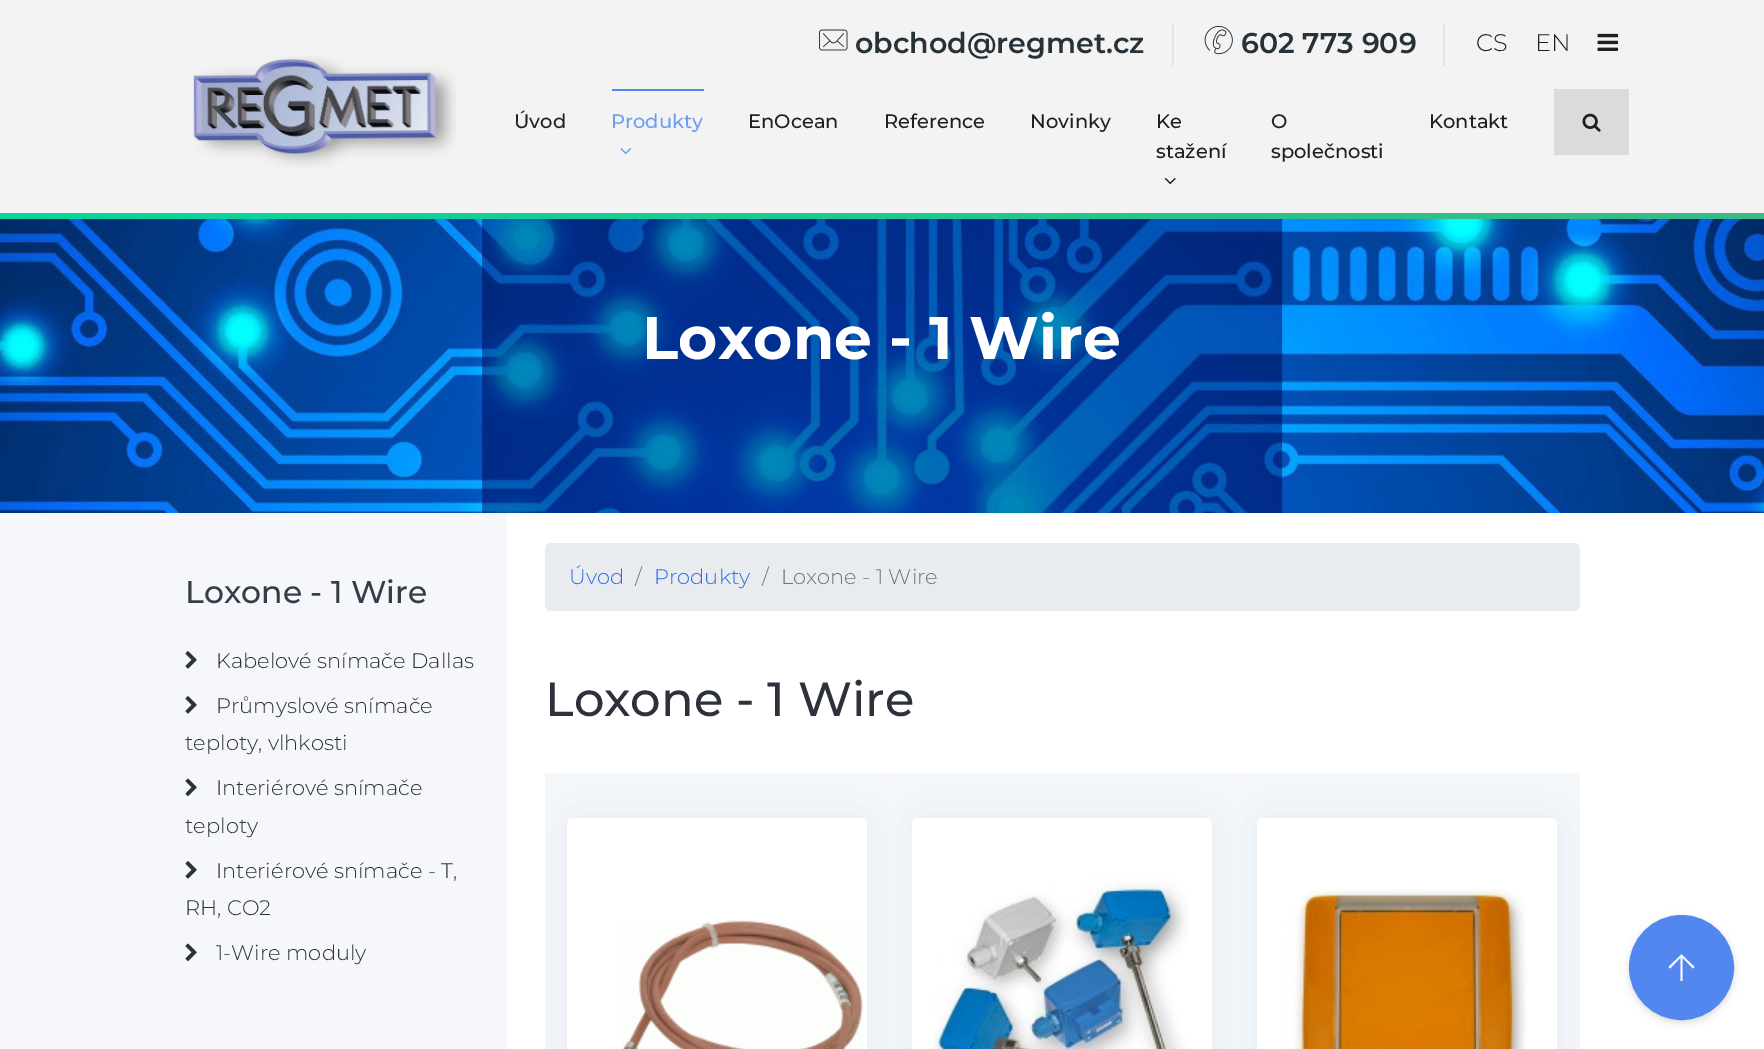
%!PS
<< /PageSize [1764 1049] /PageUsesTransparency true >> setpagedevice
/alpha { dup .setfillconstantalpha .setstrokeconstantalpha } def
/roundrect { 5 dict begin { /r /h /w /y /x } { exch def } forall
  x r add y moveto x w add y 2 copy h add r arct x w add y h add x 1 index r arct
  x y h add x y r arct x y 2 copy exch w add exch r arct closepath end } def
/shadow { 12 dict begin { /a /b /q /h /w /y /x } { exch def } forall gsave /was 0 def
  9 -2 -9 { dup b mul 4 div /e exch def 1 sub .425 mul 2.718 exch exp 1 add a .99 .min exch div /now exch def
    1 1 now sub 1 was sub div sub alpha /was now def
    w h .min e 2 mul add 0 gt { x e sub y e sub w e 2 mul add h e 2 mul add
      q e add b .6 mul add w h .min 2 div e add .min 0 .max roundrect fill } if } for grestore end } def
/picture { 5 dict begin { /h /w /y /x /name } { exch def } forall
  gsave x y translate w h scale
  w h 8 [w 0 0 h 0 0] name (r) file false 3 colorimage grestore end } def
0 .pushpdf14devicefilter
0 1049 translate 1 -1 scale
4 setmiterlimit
1 setgray
0 0 1764 1049 rectfill
0.953 setgray
0 0 1764 213 rectfill
(img1.rgb) 193 56 263 112 picture
0.89 0.894 0.902 setrgbcolor
1172 23 2 43 rectfill
(img2.rgb) 819 29 29 22 picture
/Montserrat-SemiBold [28.5 0 0 -28.5 0 0] selectfont
0.149 0.196 0.22 setrgbcolor
855 53 moveto (obchod@regmet.cz) show
0.89 0.894 0.902 setrgbcolor
1443 23 2 43 rectfill
(img3.rgb) 1204 25 29 30 picture
0.149 0.196 0.22 setrgbcolor
1241 53 moveto (602 773 909) show
/Montserrat-Light [24 0 0 -24 0 0] selectfont
0.125 setgray
1476 51 moveto (CS) show
1535 51 moveto (EN) show
(img4.rgb) 1597 33 22 18 picture
/Montserrat-Medium [19.5 0 0 -19.5 0 0] selectfont
514 128 moveto (Úvod) show
0.325 0.529 0.941 setrgbcolor
612 89 92 2 rectfill
0.435 0.612 0.961 setrgbcolor
611 128 moveto (Produkty) show
(img5.rgb) 620 148 12 7 picture
0.125 setgray
748 128 moveto (EnOcean) show
884 128 moveto (Reference) show
1030 128 moveto (Novinky) show
1156 128 moveto (Ke) show
1156 158 moveto (stažení) show
(img6.rgb) 1164 177 12 8 picture
1271 128 moveto (O) show
1271 158 moveto (společnosti) show
1429 128 moveto (Kontakt) show
0.859 setgray
1554 89 75 66 rectfill
(img7.rgb) 1582 113 19 19 picture
gsave newpath 0 213 moveto 1764 213 lineto 1764 219 lineto 0 219 lineto closepath clip newpath
<< /ShadingType 2 /ColorSpace /DeviceRGB /Coords [0 216 1764 216] /Extend [true true] /Function << /FunctionType 2 /Domain [0 1] /C0 [0.027 0.843 0.612] /C1 [0.227 0.729 0.522] /N 1 >> >> shfill grestore
(img8.rgb) 0 219 1764 294 picture
/Montserrat-Bold [60 0 0 -60 0 0] selectfont
1 setgray
642 359 moveto (Loxone - 1 Wire) show
0.961 0.969 0.98 setrgbcolor
545 773 1035 276 rectfill
gsave
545 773 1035 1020 rectclip
0.451 0.502 0.616 setrgbcolor
567 818 300 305 6 22.5 0.1 shadow
grestore
0 513 507 536 rectfill
/Montserrat-Medium [31.5 0 0 -31.5 0 0] selectfont
0.212 0.235 0.29 setrgbcolor
185 603 moveto (Loxone - 1 Wire) show
(img9.rgb) 185 651 12 18 picture
/Montserrat-Light [21 0 0 -21 0 0] selectfont
0.176 0.192 0.235 setrgbcolor
216 668 moveto (Kabelové snímače Dallas) show
(img9.rgb) 185 696 12 18 picture
216 713 moveto (Průmyslové snímače) show
185 750 moveto (teploty, vlhkosti) show
(img10.rgb) 185 778 12 18 picture
216 795 moveto (Interiérové snímače) show
185 833 moveto (teploty) show
(img9.rgb) 185 861 12 18 picture
216 878 moveto (Interiérové snímače - T,) show
185 915 moveto (RH, CO2) show
(img10.rgb) 185 943 12 18 picture
216 960 moveto (1-Wire moduly) show
0.914 0.925 0.937 setrgbcolor
545 543 1035 68 6 roundrect fill
0.188 0.427 0.91 setrgbcolor
569 584 moveto (Úvod) show
0.424 0.459 0.49 setrgbcolor
635 584 moveto (/) show
0.188 0.427 0.91 setrgbcolor
654 584 moveto (Produkty) show
0.424 0.459 0.49 setrgbcolor
762 584 moveto (/) show
781 584 moveto (Loxone - 1 Wire) show
/Montserrat-Medium [48 0 0 -48 0 0] selectfont
0.176 0.192 0.235 setrgbcolor
545 716 moveto (Loxone - 1 Wire) show
1 setgray
567 818 300 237 6 roundrect fill
(img11.rgb) 622 920 241 129 picture
0.451 0.502 0.616 setrgbcolor
912 818 300 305 6 22.5 0.1 shadow
1 setgray
912 818 300 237 6 roundrect fill
(img12.rgb) 933 872 256 177 picture
gsave
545 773 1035 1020 rectclip
0.451 0.502 0.616 setrgbcolor
1257 818 300 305 6 22.5 0.1 shadow
grestore
1257 818 300 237 6 roundrect fill
(img13.rgb) 1281 889 246 160 picture
0 setgray
1629 918 105 105 52.5 4 0.14 shadow
0.325 0.529 0.941 setrgbcolor
newpath 1681.5 967.5 51.5 0 360 arc closepath gsave fill grestore
2 setlinewidth
stroke
1 setgray
newpath 1693 968.5 moveto 1682.5 957.5 lineto 1682.5 981 lineto 1680.5 981 lineto 1680.5 957.5 lineto 1670 968.5 lineto 1668.5 967 lineto 1681.5 954.5 lineto 1694.5 967 lineto closepath fill
.poppdf14devicefilter showpage
